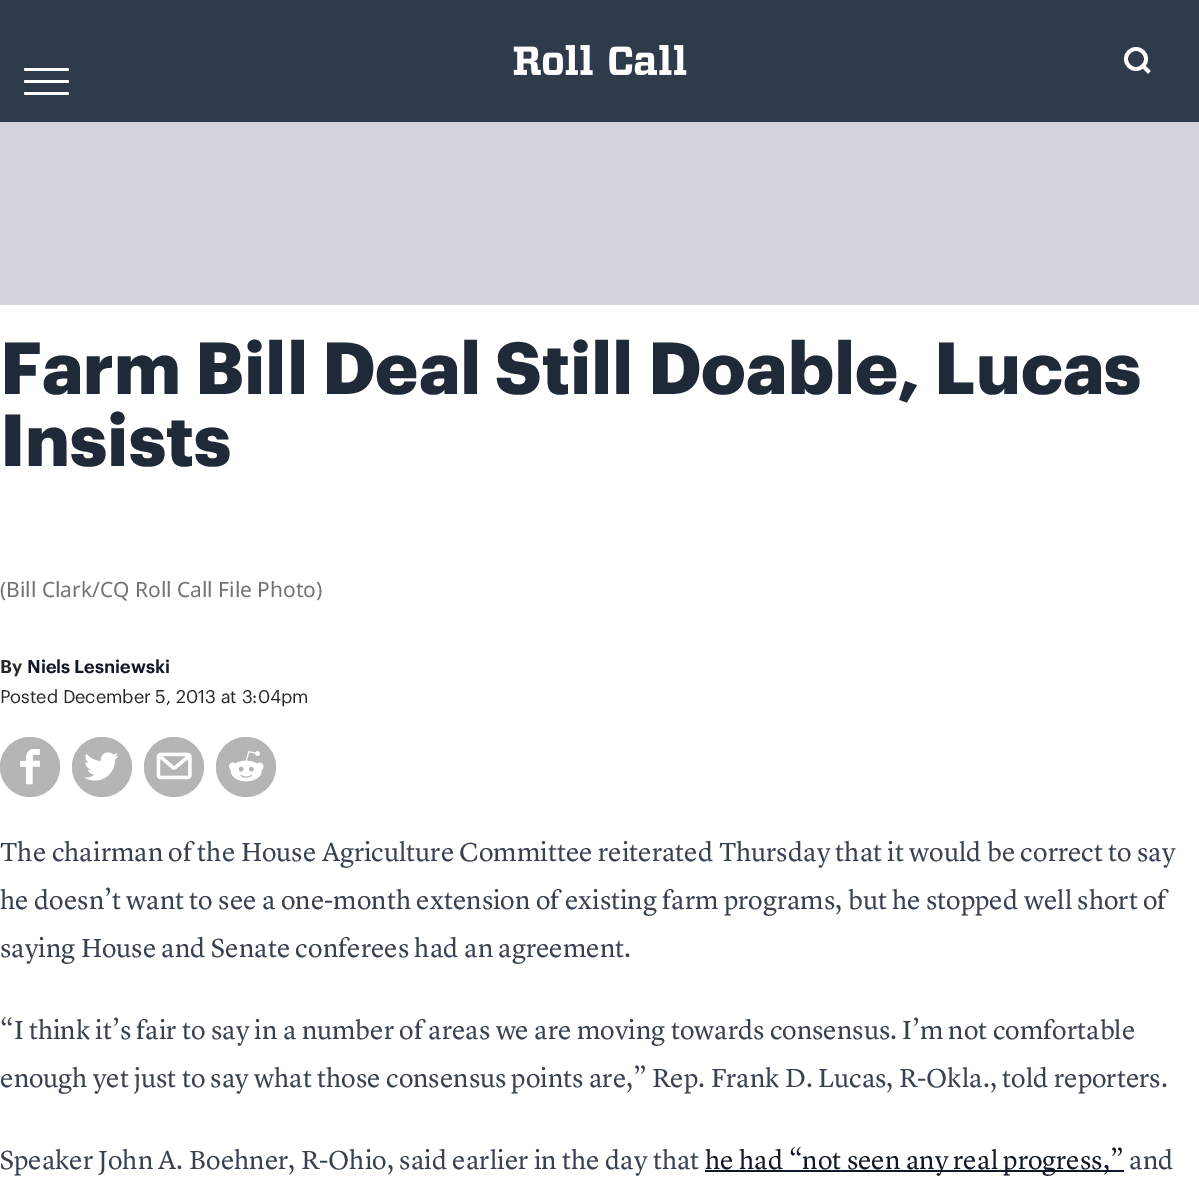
%!PS
<< /PageSize [1199 1197] >> setpagedevice
/roundrect { 5 dict begin { /r /h /w /y /x } { exch def } forall
  x r add y moveto x w add y 2 copy h add r arct x w add y h add x 1 index r arct
  x y h add x y r arct x y 2 copy exch w add exch r arct closepath end } def
/picture { 5 dict begin { /h /w /y /x /name } { exch def } forall
  gsave x y translate w h scale
  w h 8 [w 0 0 h 0 0] name (r) file false 3 colorimage grestore end } def
0 1197 translate 1 -1 scale
4 setmiterlimit
1 setgray
0 0 1199 1197 rectfill
0.184 0.231 0.294 setrgbcolor
0 0 1199 122 rectfill
(img1.rgb) 513 45 174 30 picture
1 setgray
3.8 setlinewidth
newpath 1136 59 10 0 360 arc closepath stroke
2 setlinecap
newpath 1148 71 moveto 1143 66 lineto stroke
24 80 45 3 1.5 roundrect fill
24 68 45 3 1.5 roundrect fill
24 92 45 3 1.5 roundrect fill
0.82 0.835 0.859 setrgbcolor
0 122 1199 183 rectfill
/Graphik-Bold [72 0 0 -72 0 0] selectfont
0.122 0.161 0.216 setrgbcolor
0 394 moveto (Farm Bill Deal Still Doable, Lucas) show
0 466 moveto (Insists) show
/NotoSans-Regular [21 0 0 -21 0 0] selectfont
0.451 setgray
0 597 moveto (\(Bill Clark/CQ Roll Call File Photo\)) show
/Graphik-SemiBold [18 0 0 -18 0 0] selectfont
0.153 0.153 0.165 setrgbcolor
0 673 moveto (By) show
0.067 0.094 0.153 setrgbcolor
27 673 moveto (Niels Lesniewski) show
/Graphik-Regular [18 0 0 -18 0 0] selectfont
0.153 0.153 0.165 setrgbcolor
0 703 moveto (Posted December 5, 2013 at 3:04pm) show
0.71 setgray
newpath 30 767 30 0 360 arc closepath fill
(img2.rgb) 20 749 20 36 picture
newpath 102 767 30 0 360 arc closepath fill
(img3.rgb) 84 752 35 29 picture
newpath 174 767 30 0 360 arc closepath fill
(img4.rgb) 156 752 36 28 picture
newpath 246 767 30 0 360 arc closepath fill
(img5.rgb) 229 751 35 31 picture
/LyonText-Regular [27 0 0 -27 0 0] selectfont
0.216 0.255 0.318 setrgbcolor
0 861 moveto (The chairman of the House Agriculture Committee reiterated Thursday that it would be correct to say) show
0 909 moveto (he doesn’t want to see a one-month extension of existing farm programs, but he stopped well short of) show
0 957 moveto (saying House and Senate conferees had an agreement.) show
0 1039 moveto (“I think it’s fair to say in a number of areas we are moving towards consensus. I’m not comfortable) show
0 1087 moveto (enough yet just to say what those consensus points are,” Rep. Frank D. Lucas, R-Okla., told reporters.) show
0 1169 moveto (Speaker John A. Boehner, R-Ohio, said earlier in the day that) show
0.067 0.094 0.153 setrgbcolor
705 1170 419 2 rectfill
705 1169 moveto (he had “not seen any real progress,”) show
0.216 0.255 0.318 setrgbcolor
1129 1169 moveto (and) show
showpage
